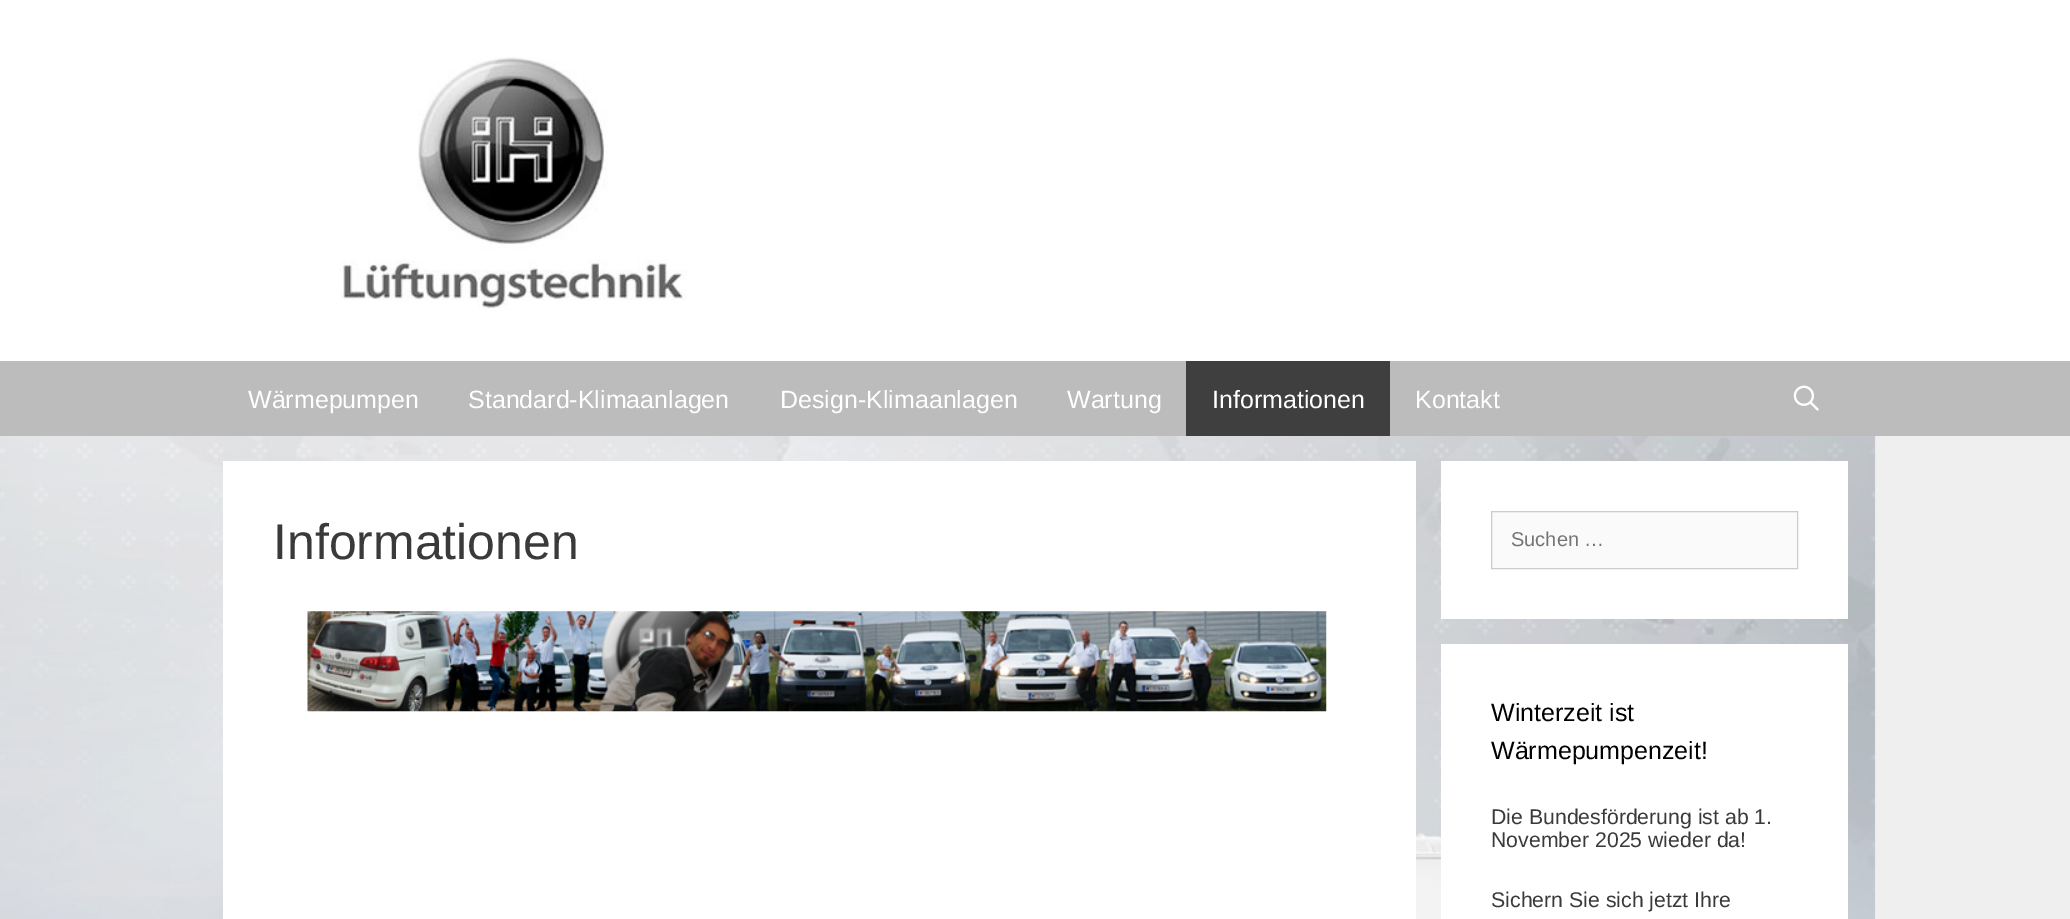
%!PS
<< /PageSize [2070 919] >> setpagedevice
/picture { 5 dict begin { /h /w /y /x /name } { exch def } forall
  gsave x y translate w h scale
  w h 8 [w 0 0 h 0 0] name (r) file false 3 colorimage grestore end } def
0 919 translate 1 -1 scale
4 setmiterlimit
0.937 setgray
0 0 2070 919 rectfill
(img1.rgb) 0 436 1876 483 picture
1 setgray
0 0 2070 361 rectfill
(img2.rgb) 340 57 347 253 picture
0.737 0.737 0.741 setrgbcolor
0 361 2070 75 rectfill
/LiberationSans-Regular [25 0 0 -25 0 0] selectfont
1 setgray
248 408 moveto (Wärmepumpen) show
468 408 moveto (Standard-Klimaanlagen) show
780 408 moveto (Design-Klimaanlagen) show
1067 408 moveto (Wartung) show
0.247 setgray
1186 361 204 75 rectfill
1 setgray
1212 408 moveto (Informationen) show
1415 408 moveto (Kontakt) show
(img3.rgb) 1793 385 26 26 picture
223 461 1193 458 rectfill
/LiberationSans-Regular [50 0 0 -50 0 0] selectfont
0.227 setgray
273 559 moveto (Informationen) show
(img4.rgb) 307 611 1020 101 picture
1 setgray
1441 461 407 158 rectfill
0.98 setgray
newpath 1491.5 511.5 moveto 1797.5 511.5 lineto 1797.5 568.5 lineto 1491.5 568.5 lineto closepath gsave fill grestore
0.8 setgray
stroke
/LiberationSans-Regular [20 0 0 -20 0 0] selectfont
0.459 setgray
1511 546 moveto (Suchen …) show
1 setgray
1441 644 407 275 rectfill
/LiberationSans-Regular [25 0 0 -25 0 0] selectfont
0 setgray
1491 721 moveto (Winterzeit ist) show
1491 759 moveto (Wärmepumpenzeit!) show
/LiberationSans-Regular [21.25 0 0 -21.25 0 0] selectfont
0.227 setgray
1491 824 moveto (Die Bundesförderung ist ab 1.) show
1491 847 moveto (November 2025 wieder da!) show
1491 907 moveto (Sichern Sie sich jetzt Ihre) show
showpage
